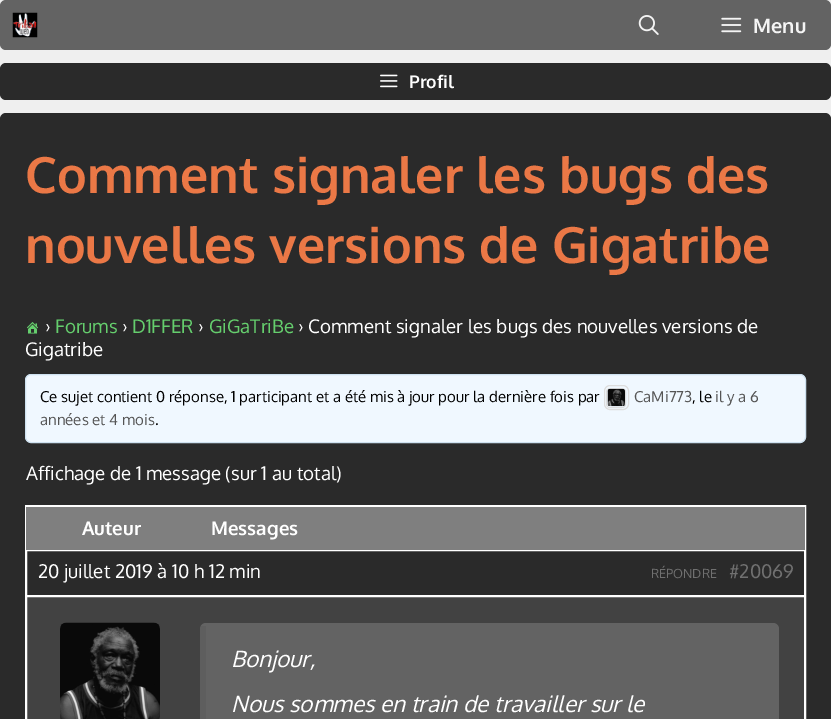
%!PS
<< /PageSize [831 719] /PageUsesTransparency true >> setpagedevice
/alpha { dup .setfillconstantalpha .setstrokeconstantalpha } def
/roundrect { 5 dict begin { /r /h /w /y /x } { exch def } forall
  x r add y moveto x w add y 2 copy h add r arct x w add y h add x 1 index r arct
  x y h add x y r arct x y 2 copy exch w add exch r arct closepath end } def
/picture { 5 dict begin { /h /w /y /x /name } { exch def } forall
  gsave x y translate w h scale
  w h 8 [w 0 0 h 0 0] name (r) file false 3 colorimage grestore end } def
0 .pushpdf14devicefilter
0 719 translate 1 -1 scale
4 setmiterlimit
0.937 setgray
0 0 831 719 rectfill
0.388 setgray
0 0 831 50 6 roundrect fill
(img1.rgb) 12 12 26 26 picture
(img2.rgb) 638 15 21 20 picture
(img3.rgb) 721 17 21 16 picture
/Oxygen-Bold [20 0 0 -20 0 0] selectfont
0.957 setgray
753 33 moveto (Menu) show
0.165 setgray
0 63 831 37 6 roundrect fill
(img4.rgb) 380 74 18 14 picture
/Oxygen-Bold [17.5 0 0 -17.5 0 0] selectfont
1 setgray
409 88 moveto (Profil) show
0.165 setgray
0 113 831 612 6 roundrect fill
/Oxygen-Bold [50 0 0 -50 0 0] selectfont
0.922 0.471 0.275 setrgbcolor
25 193 moveto (Comment signaler les bugs des) show
25 263 moveto (nouvelles versions de Gigatribe) show
(img5.rgb) 27 322 11 12 picture
/Oxygen-Regular [18.75 0 0 -18.75 0 0] selectfont
1 setgray
45 333 moveto (›) show
0.396 0.808 0.427 setrgbcolor
55 333 moveto (Forums) show
1 setgray
122 333 moveto (›) show
0.396 0.808 0.427 setrgbcolor
132 333 moveto (D1FFER) show
1 setgray
198 333 moveto (›) show
0.396 0.808 0.427 setrgbcolor
209 333 moveto (GiGaTriBe) show
1 setgray
298 333 moveto (› Comment signaler les bugs des nouvelles versions de) show
25 356 moveto (Gigatribe) show
0.941 0.973 1 setrgbcolor
25.5 374.5 780 68 5.5 roundrect gsave fill grestore
0.808 0.882 0.937 setrgbcolor
stroke
/Oxygen-Regular [15 0 0 -15 0 0] selectfont
0 setgray
40 402 moveto (Ce sujet contient 0 réponse, 1 participant et a été mis à jour pour la dernière fois par) show
0.867 setgray
604.5 385.5 24 24 5.5 roundrect stroke
606.5 388.5 19 19 3.5 roundrect stroke
(img6.rgb) 607 388 18 19 picture
0.333 setgray
634 402 moveto (CaMi773) show
0 setgray
692 402 moveto (, le) show
0.333 setgray
715 402 moveto (il y a 6) show
40 425 moveto (années et 4 mois) show
0 setgray
155 425 moveto (.) show
/Oxygen-Regular [18.75 0 0 -18.75 0 0] selectfont
1 setgray
26 480 moveto (Affichage de 1 message \(sur 1 au total\)) show
25.5 505.5 780 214 rectstroke
0.498 setgray
26 507 779 43 rectfill
1 setgray
26 506 779 1 rectfill
/Oxygen-Bold [18.75 0 0 -18.75 0 0] selectfont
82 535 moveto (Auteur) show
211 535 moveto (Messages) show
26.5 550.5 778 45 rectstroke
/Oxygen-Regular [18.75 0 0 -18.75 0 0] selectfont
38 578 moveto (20 juillet 2019 à 10 h 12 min) show
/Oxygen-Regular [12.5 0 0 -12.5 0 0] selectfont
0.439 setgray
651 578 moveto (RÉPONDRE) show
/Oxygen-Regular [18.75 0 0 -18.75 0 0] selectfont
729 578 moveto (#20069) show
0.259 setgray
newpath 26.5 596.5 moveto 804.5 596.5 lineto 804.5 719.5 lineto 26.5 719.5 lineto closepath gsave fill grestore
1 setgray
stroke
(img7.rgb) 60 622 100 97 picture
0.388 setgray
200 623 579 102 6 roundrect fill
0.05 alpha
0 setgray
200 626 6 93 rectfill
/Oxygen-Italic [22.5 0 0 -22.5 0 0] selectfont
1 alpha
1 setgray
231 667 moveto (Bonjour,) show
231 712 moveto (Nous sommes en train de travailler sur le) show
.poppdf14devicefilter showpage
